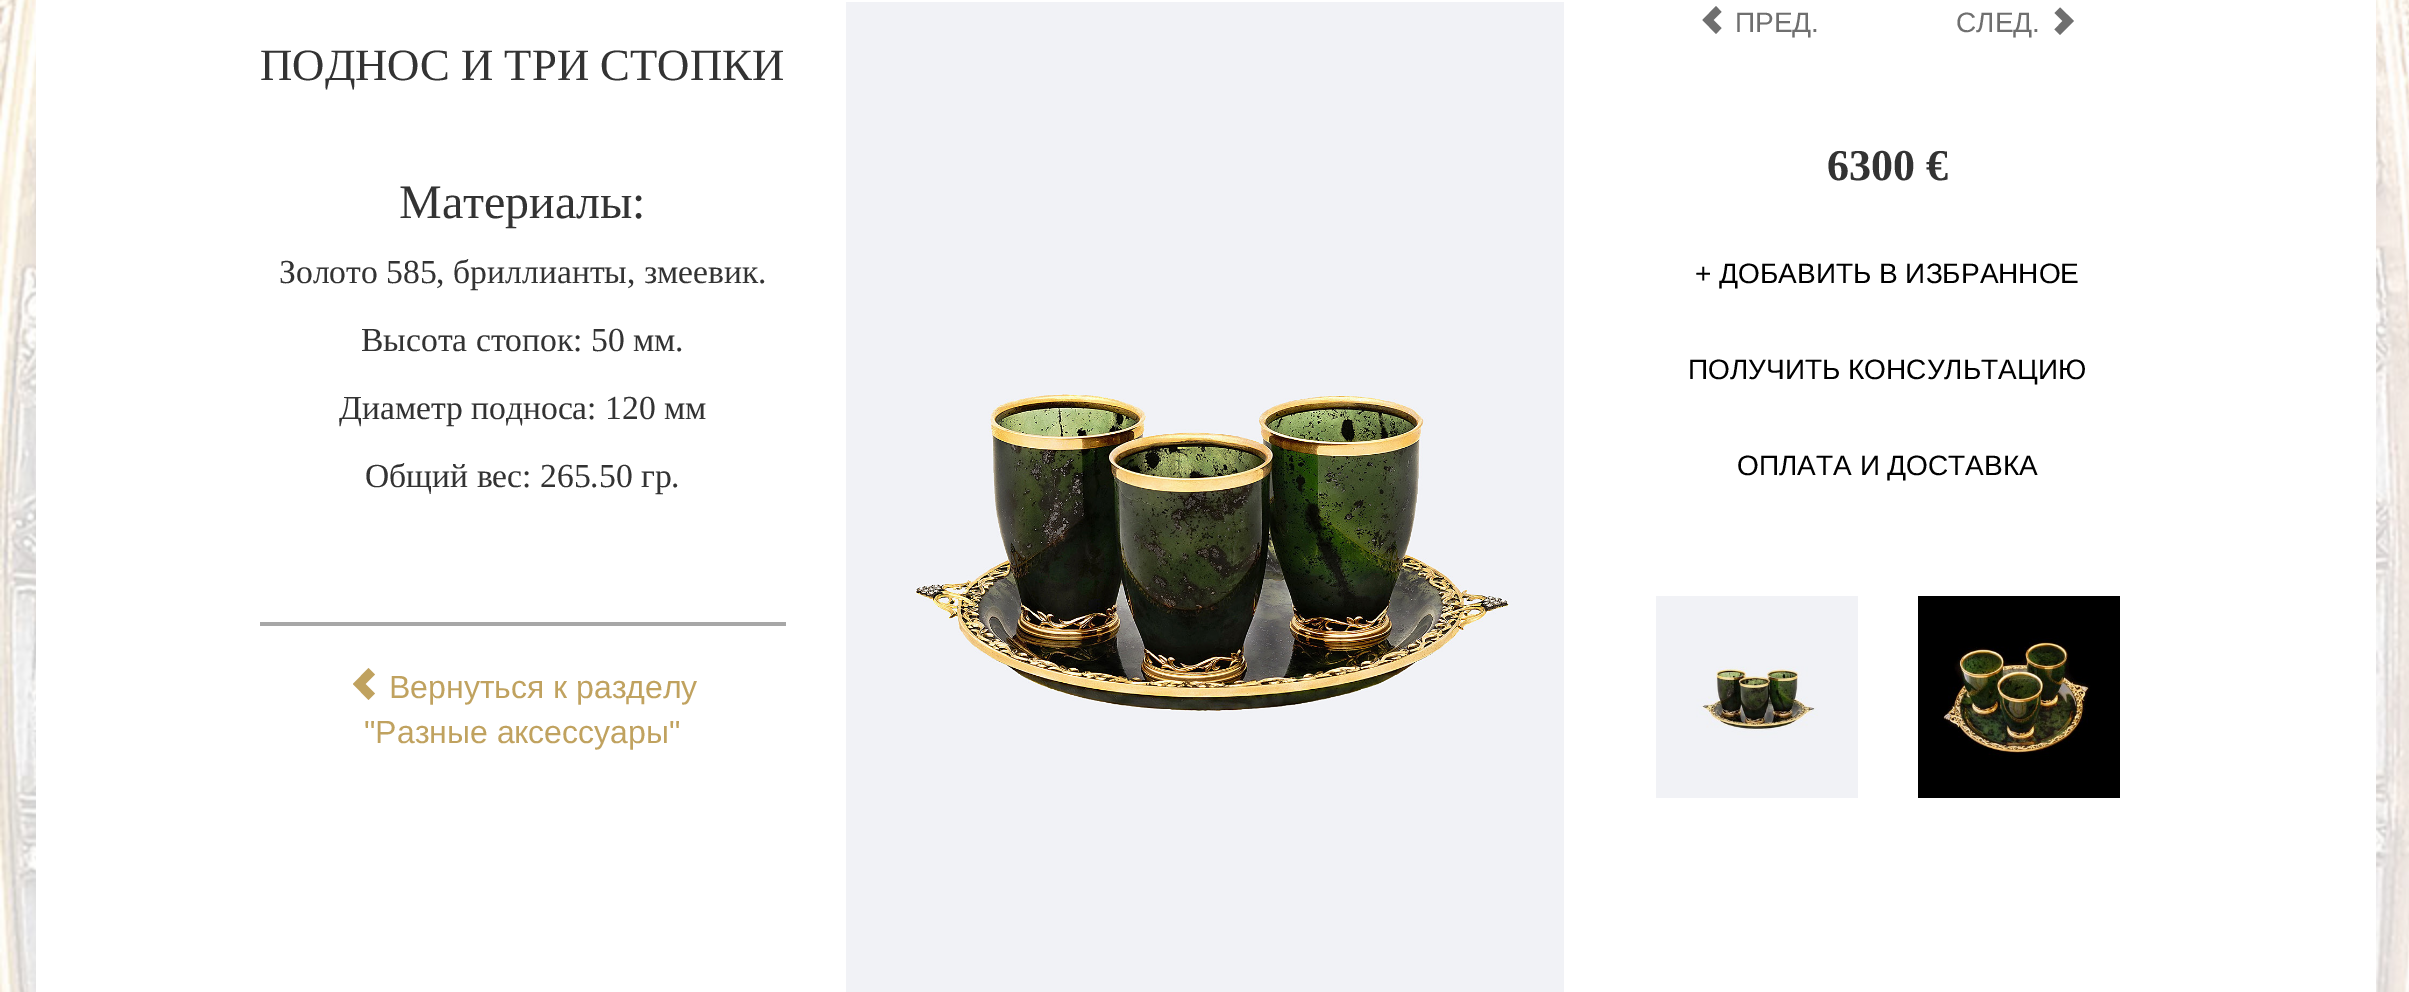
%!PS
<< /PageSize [2409 992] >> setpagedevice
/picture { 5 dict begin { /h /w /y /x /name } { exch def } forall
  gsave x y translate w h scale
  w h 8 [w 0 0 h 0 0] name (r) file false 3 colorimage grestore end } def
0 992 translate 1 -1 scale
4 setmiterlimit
1 setgray
0 0 2409 992 rectfill
(img1.rgb) 0 0 2409 992 picture
36 0 2340 992 rectfill
/LiberationSerif-Regular [44.75 0 0 -44.75 0 0] selectfont
0.2 setgray
260 80 moveto (ПОДНОС И ТРИ СТОПКИ) show
0.655 setgray
260 622 526 4 rectfill
/LiberationSerif-Regular [48 0 0 -48 0 0] selectfont
0.2 setgray
399 218 moveto (Материалы:) show
/LiberationSerif-Regular [33.6 0 0 -33.6 0 0] selectfont
279 283 moveto (Золото 585, бриллианты, змеевик.) show
361 351 moveto (Высота стопок: 50 мм.) show
339 419 moveto (Диаметр подноса: 120 мм) show
365 487 moveto (Общий вес: 265.50 гр.) show
0.753 0.635 0.373 setrgbcolor
newpath 353 684 moveto 368.5 700 lineto 375 693.5 lineto 365.5 684 lineto 375 674.5 lineto 368.5 668 lineto closepath fill
/LiberationSans-Regular [32 0 0 -32 0 0] selectfont
389 698 moveto (Вернуться к разделу) show
364 743 moveto ("Разные аксессуары") show
(img2.rgb) 846 2 718 990 picture
0.435 setgray
newpath 1702.5 20 moveto 1716 34 lineto 1721.5 28 lineto 1713.5 20 lineto 1721.5 12 lineto 1716 6 lineto closepath fill
/LiberationSans-Regular [28 0 0 -28 0 0] selectfont
1735 32 moveto (ПРЕД.) show
1956 32 moveto (СЛЕД.) show
newpath 2054.5 29.5 moveto 2062.5 21 lineto 2054.5 13 lineto 2060 7.5 lineto 2074 21 lineto 2060 35 lineto closepath fill
/LiberationSerif-Bold [44 0 0 -44 0 0] selectfont
0.2 setgray
1827 180 moveto (6300 €) show
/LiberationSans-Regular [28 0 0 -28 0 0] selectfont
0 setgray
1695 283 moveto (+ ДОБАВИТЬ В ИЗБРАННОЕ) show
1688 379 moveto (ПОЛУЧИТЬ КОНСУЛЬТАЦИЮ) show
1737 475 moveto (ОПЛАТА И ДОСТАВКА) show
(img3.rgb) 1656 596 202 202 picture
(img4.rgb) 1918 596 202 202 picture
showpage
